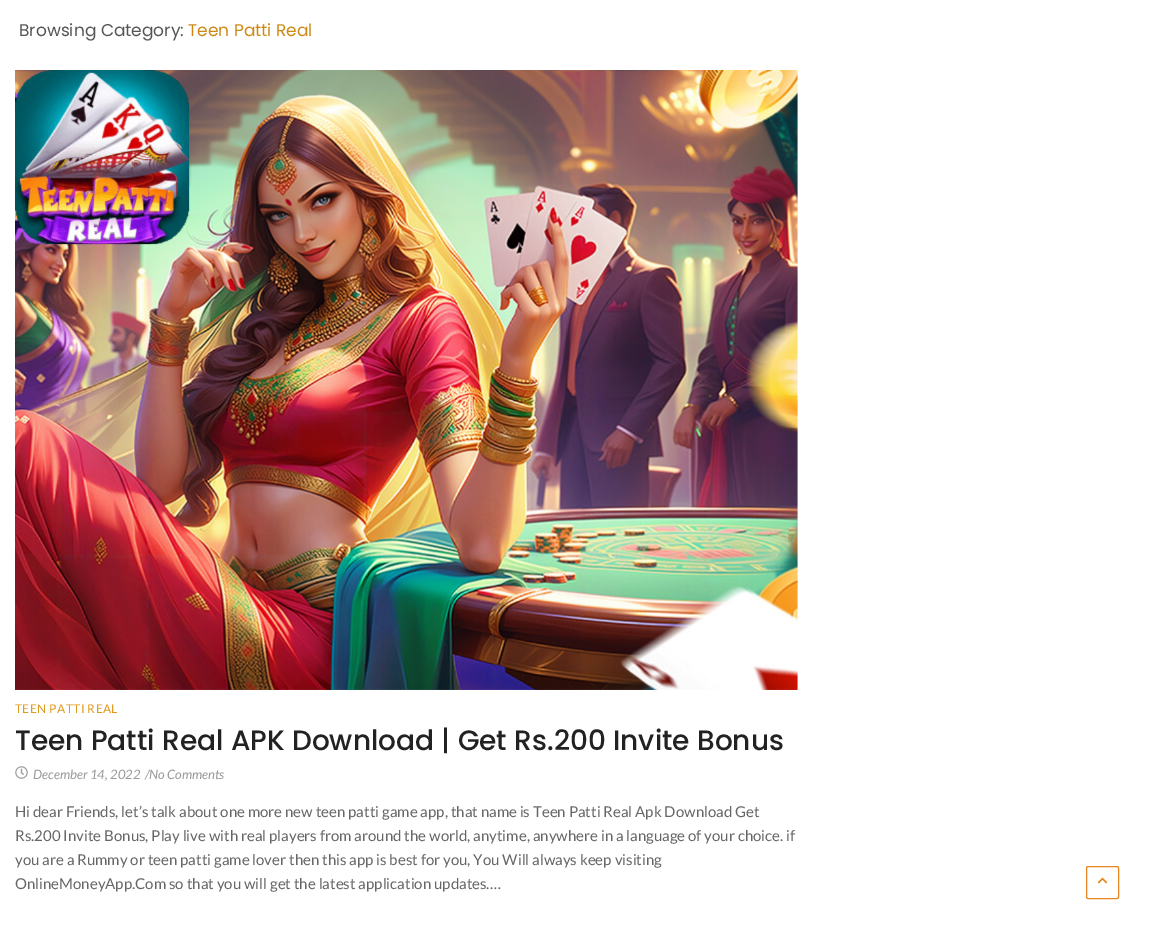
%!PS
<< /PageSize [1149 929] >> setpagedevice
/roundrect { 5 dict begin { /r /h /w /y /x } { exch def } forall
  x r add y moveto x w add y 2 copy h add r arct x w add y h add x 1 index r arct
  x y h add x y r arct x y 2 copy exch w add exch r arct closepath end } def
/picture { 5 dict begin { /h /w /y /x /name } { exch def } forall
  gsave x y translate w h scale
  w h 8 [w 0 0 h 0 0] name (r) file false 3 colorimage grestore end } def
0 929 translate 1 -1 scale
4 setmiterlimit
1 setgray
0 0 1149 929 rectfill
/Poppins-Regular [17 0 0 -17 0 0] selectfont
0.333 setgray
19 36 moveto (Browsing Category:) show
0.8 0.537 0.078 setrgbcolor
188 36 moveto (Teen Patti Real) show
(img1.rgb) 15 70 783 620 picture
/Lato-Regular [12 0 0 -12 0 0] selectfont
0.878 0.604 0.122 setrgbcolor
15 713 moveto 0.4 0 (TEEN PATTI REAL) ashow
/Poppins-Medium [28 0 0 -28 0 0] selectfont
0.133 setgray
15 750 moveto (Teen Patti Real APK Download | Get Rs.200 Invite Bonus) show
(img2.rgb) 15 766 13 13 picture
/Lato-Italic [13 0 0 -13 0 0] selectfont
0.6 setgray
33 779 moveto (December 14, 2022) show
145 779 moveto (/) show
149 779 moveto (No Comments) show
/Lato-Regular [15 0 0 -15 0 0] selectfont
0.4 setgray
15 817 moveto (Hi dear Friends, let’s talk about one more new teen patti game app, that name is Teen Patti Real Apk Download Get) show
15 841 moveto (Rs.200 Invite Bonus, Play live with real players from around the world, anytime, anywhere in a language of your choice. if) show
15 865 moveto (you are a Rummy or teen patti game lover then this app is best for you, You Will always keep visiting) show
15 889 moveto (OnlineMoneyApp.Com so that you will get the latest application updates.…) show
0.898 0.525 0.122 setrgbcolor
1086.5 866.5 32 32 1.5 roundrect stroke
(img3.rgb) 1097 877 11 7 picture
showpage
